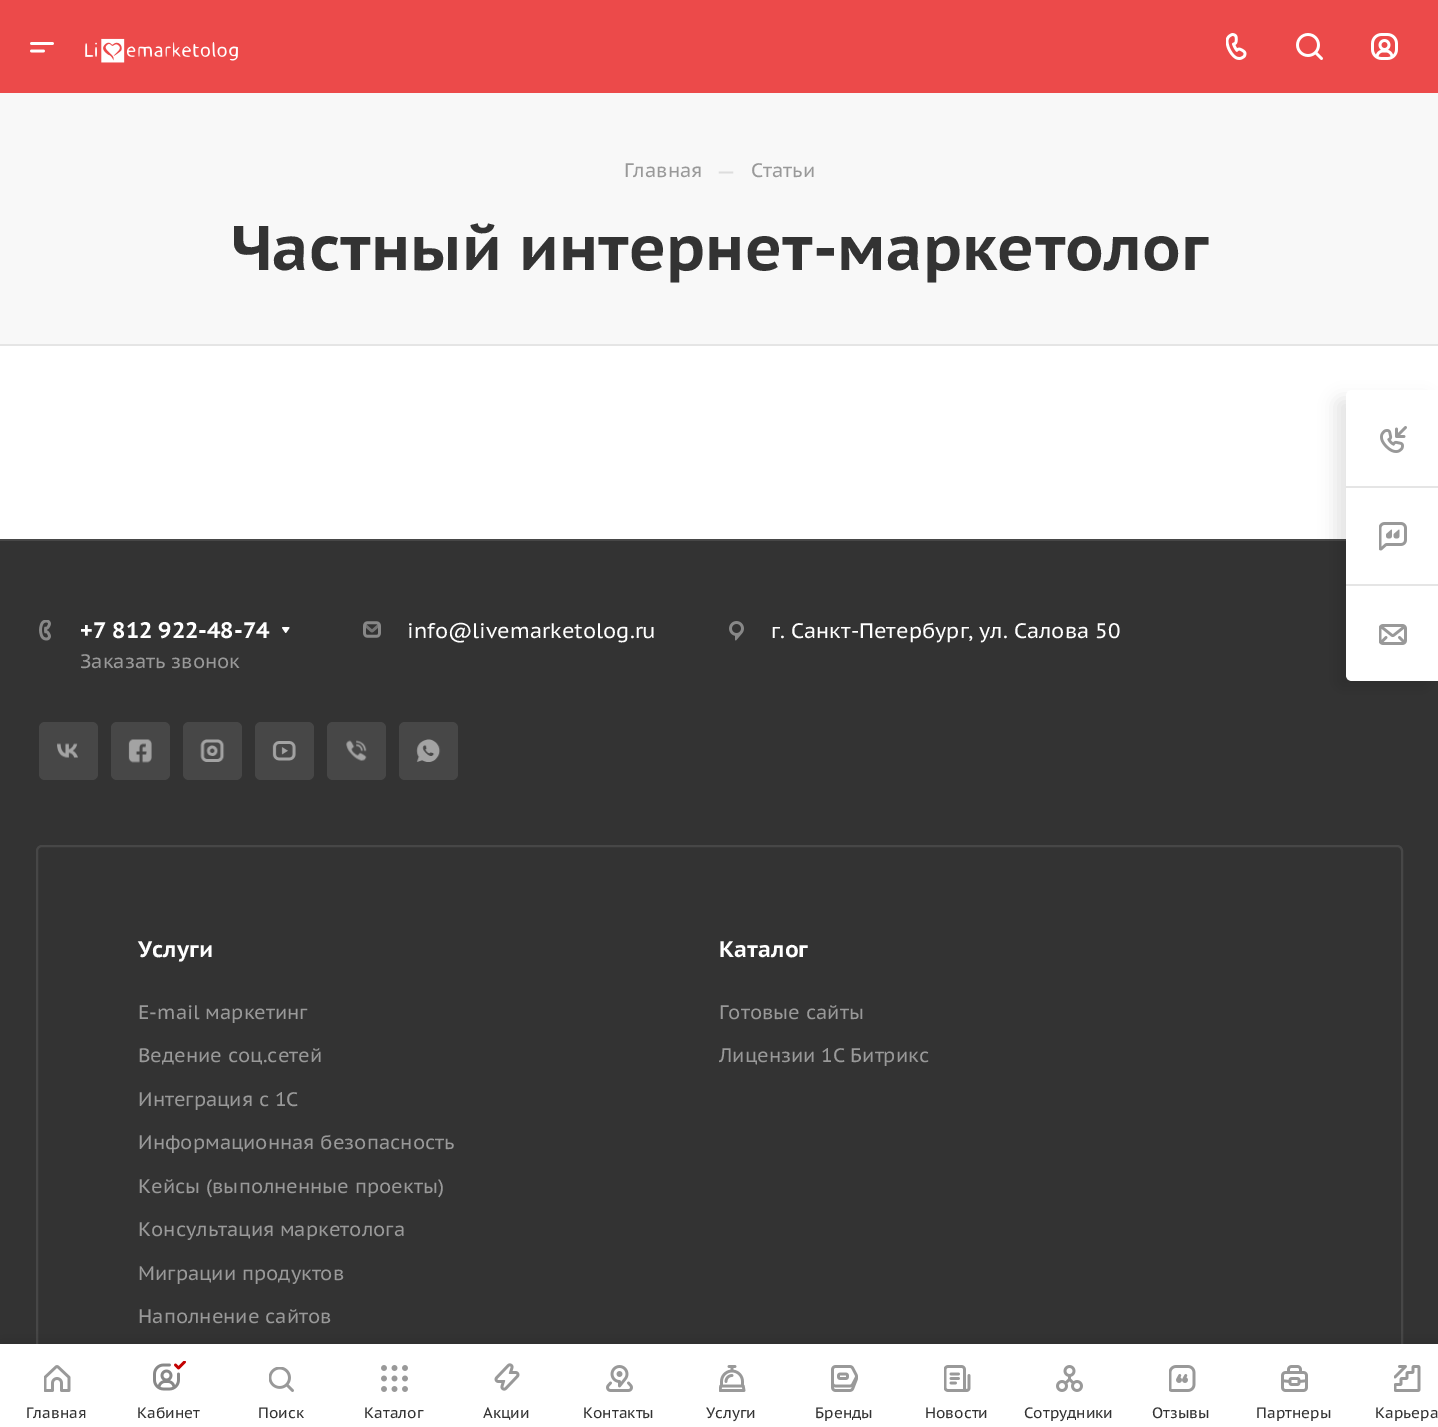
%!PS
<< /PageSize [1438 1427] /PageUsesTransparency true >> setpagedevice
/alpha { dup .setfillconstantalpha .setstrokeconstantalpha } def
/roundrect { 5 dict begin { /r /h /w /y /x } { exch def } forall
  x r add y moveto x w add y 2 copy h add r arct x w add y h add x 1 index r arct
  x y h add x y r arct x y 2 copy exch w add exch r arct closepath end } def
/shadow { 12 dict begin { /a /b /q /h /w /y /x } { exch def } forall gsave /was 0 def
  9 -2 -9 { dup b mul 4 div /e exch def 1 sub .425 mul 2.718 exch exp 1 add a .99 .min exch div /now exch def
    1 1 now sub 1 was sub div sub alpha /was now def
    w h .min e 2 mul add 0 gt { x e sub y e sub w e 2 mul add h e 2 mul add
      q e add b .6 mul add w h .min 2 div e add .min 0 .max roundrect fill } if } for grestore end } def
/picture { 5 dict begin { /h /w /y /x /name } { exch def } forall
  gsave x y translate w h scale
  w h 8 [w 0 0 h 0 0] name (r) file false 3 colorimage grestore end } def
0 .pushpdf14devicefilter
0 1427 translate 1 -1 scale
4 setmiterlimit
1 setgray
0 0 1438 1427 rectfill
0.925 0.29 0.29 setrgbcolor
0 0 1438 93 rectfill
(img1.rgb) 30 42 24 11 picture
(img2.rgb) 85 38 153 25 picture
(img3.rgb) 1226 33 21 27 picture
(img4.rgb) 1296 33 27 27 picture
(img5.rgb) 1371 33 27 27 picture
0.973 setgray
0 93 1438 251 rectfill
0.898 setgray
0 344 1438 2 rectfill
/PTSansCaption-Regular [19.5 0 0 -19.5 0 0] selectfont
0.6 setgray
624 177 moveto (Главная) show
/PTSansCaption-Regular [22.5 0 0 -22.5 0 0] selectfont
0.867 setgray
716 179 moveto (—) show
/PTSansCaption-Regular [19.5 0 0 -19.5 0 0] selectfont
0.6 setgray
751 177 moveto (Статьи) show
/PTSansCaption-Bold [63 0 0 -63 0 0] selectfont
0.2 setgray
231 270 moveto (Частный интернет-маркетолог) show
0 541 1438 803 rectfill
0.278 setgray
0 539 1346 2 rectfill
0 setgray
1335 398 95 291 6 8 0.1 shadow
1 setgray
newpath 1352 390 moveto 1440 390 lineto 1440 681 lineto 1352 681 lineto 1348.5 681 1346 678.5 1346 675 curveto 1346 396 lineto 1346 392.5 1348.5 390 1352 390 curveto closepath fill
(img6.rgb) 1380 426 27 27 picture
0.898 setgray
1346 486 92 2 rectfill
(img7.rgb) 1379 522 28 29 picture
1346 584 92 2 rectfill
(img8.rgb) 1379 624 28 21 picture
(img9.rgb) 39 620 12 21 picture
/PTSansCaption-Bold [22.5 0 0 -22.5 0 0] selectfont
1 setgray
80 638 moveto (+7 812 922-48-74) show
(img10.rgb) 282 627 8 6 picture
/PTSansCaption-Regular [19.5 0 0 -19.5 0 0] selectfont
0.6 setgray
80 668 moveto (Заказать звонок) show
(img11.rgb) 363 621 18 17 picture
/PTSansCaption-Regular [21 0 0 -21 0 0] selectfont
1 setgray
407 638 moveto (info@livemarketolog.ru) show
(img12.rgb) 729 621 15 20 picture
771 638 moveto (г. Санкт-Петербург, ул. Салова 50) show
0.278 setgray
39 722 59 58 6 roundrect fill
(img13.rgb) 57 743 21 15 picture
111 722 59 58 6 roundrect fill
(img14.rgb) 128 739 24 24 picture
183 722 59 58 6 roundrect fill
(img15.rgb) 200 739 25 23 picture
255 722 59 58 6 roundrect fill
(img16.rgb) 272 741 24 20 picture
327 722 59 58 6 roundrect fill
(img17.rgb) 346 740 21 21 picture
399 722 59 58 6 roundrect fill
(img18.rgb) 416 739 25 23 picture
2 setlinewidth
37 846 1365 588 5 roundrect stroke
/PTSansCaption-Bold [22.5 0 0 -22.5 0 0] selectfont
1 setgray
138 957 moveto (Услуги) show
/PTSansCaption-Regular [19.5 0 0 -19.5 0 0] selectfont
0.6 setgray
138 1019 moveto (E-mail маркетинг) show
138 1062 moveto (Ведение соц.сетей) show
138 1106 moveto (Интеграция с 1С) show
138 1149 moveto (Информационная безопасность) show
138 1193 moveto (Кейсы \(выполненные проекты\)) show
138 1236 moveto (Консультация маркетолога) show
138 1280 moveto (Миграции продуктов) show
138 1323 moveto (Наполнение сайтов) show
/PTSansCaption-Bold [22.5 0 0 -22.5 0 0] selectfont
1 setgray
719 957 moveto (Каталог) show
/PTSansCaption-Regular [19.5 0 0 -19.5 0 0] selectfont
0.6 setgray
719 1019 moveto (Готовые сайты) show
719 1062 moveto (Лицензии 1С Битрикс) show
0 setgray
0 1340 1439 84 0 7.5 0.1 shadow
1 setgray
0 1344 1438 83 rectfill
(img19.rgb) 44 1365 27 27 picture
/PTSansCaption-Regular [15 0 0 -15 0 0] selectfont
0.2 setgray
26 1418 moveto (Главная) show
(img20.rgb) 153 1361 33 30 picture
137 1418 moveto (Кабинет) show
(img21.rgb) 269 1367 25 25 picture
258 1418 moveto (Поиск) show
(img22.rgb) 381 1365 27 27 picture
364 1418 moveto (Каталог) show
(img23.rgb) 494 1363 26 28 picture
483 1418 moveto (Акции) show
(img24.rgb) 606 1365 27 27 picture
583 1418 moveto (Контакты) show
(img25.rgb) 719 1365 27 27 picture
706 1418 moveto (Услуги) show
(img26.rgb) 831 1365 27 27 picture
815 1418 moveto (Бренды) show
(img27.rgb) 944 1365 27 27 picture
925 1418 moveto (Новости) show
(img28.rgb) 1056 1365 27 27 picture
1024 1418 moveto (Сотрудники) show
(img29.rgb) 1169 1365 27 27 picture
1152 1418 moveto (Отзывы) show
(img30.rgb) 1281 1365 27 27 picture
1256 1418 moveto (Партнеры) show
(img31.rgb) 1394 1365 27 27 picture
1375 1418 moveto (Карьера) show
.poppdf14devicefilter showpage
